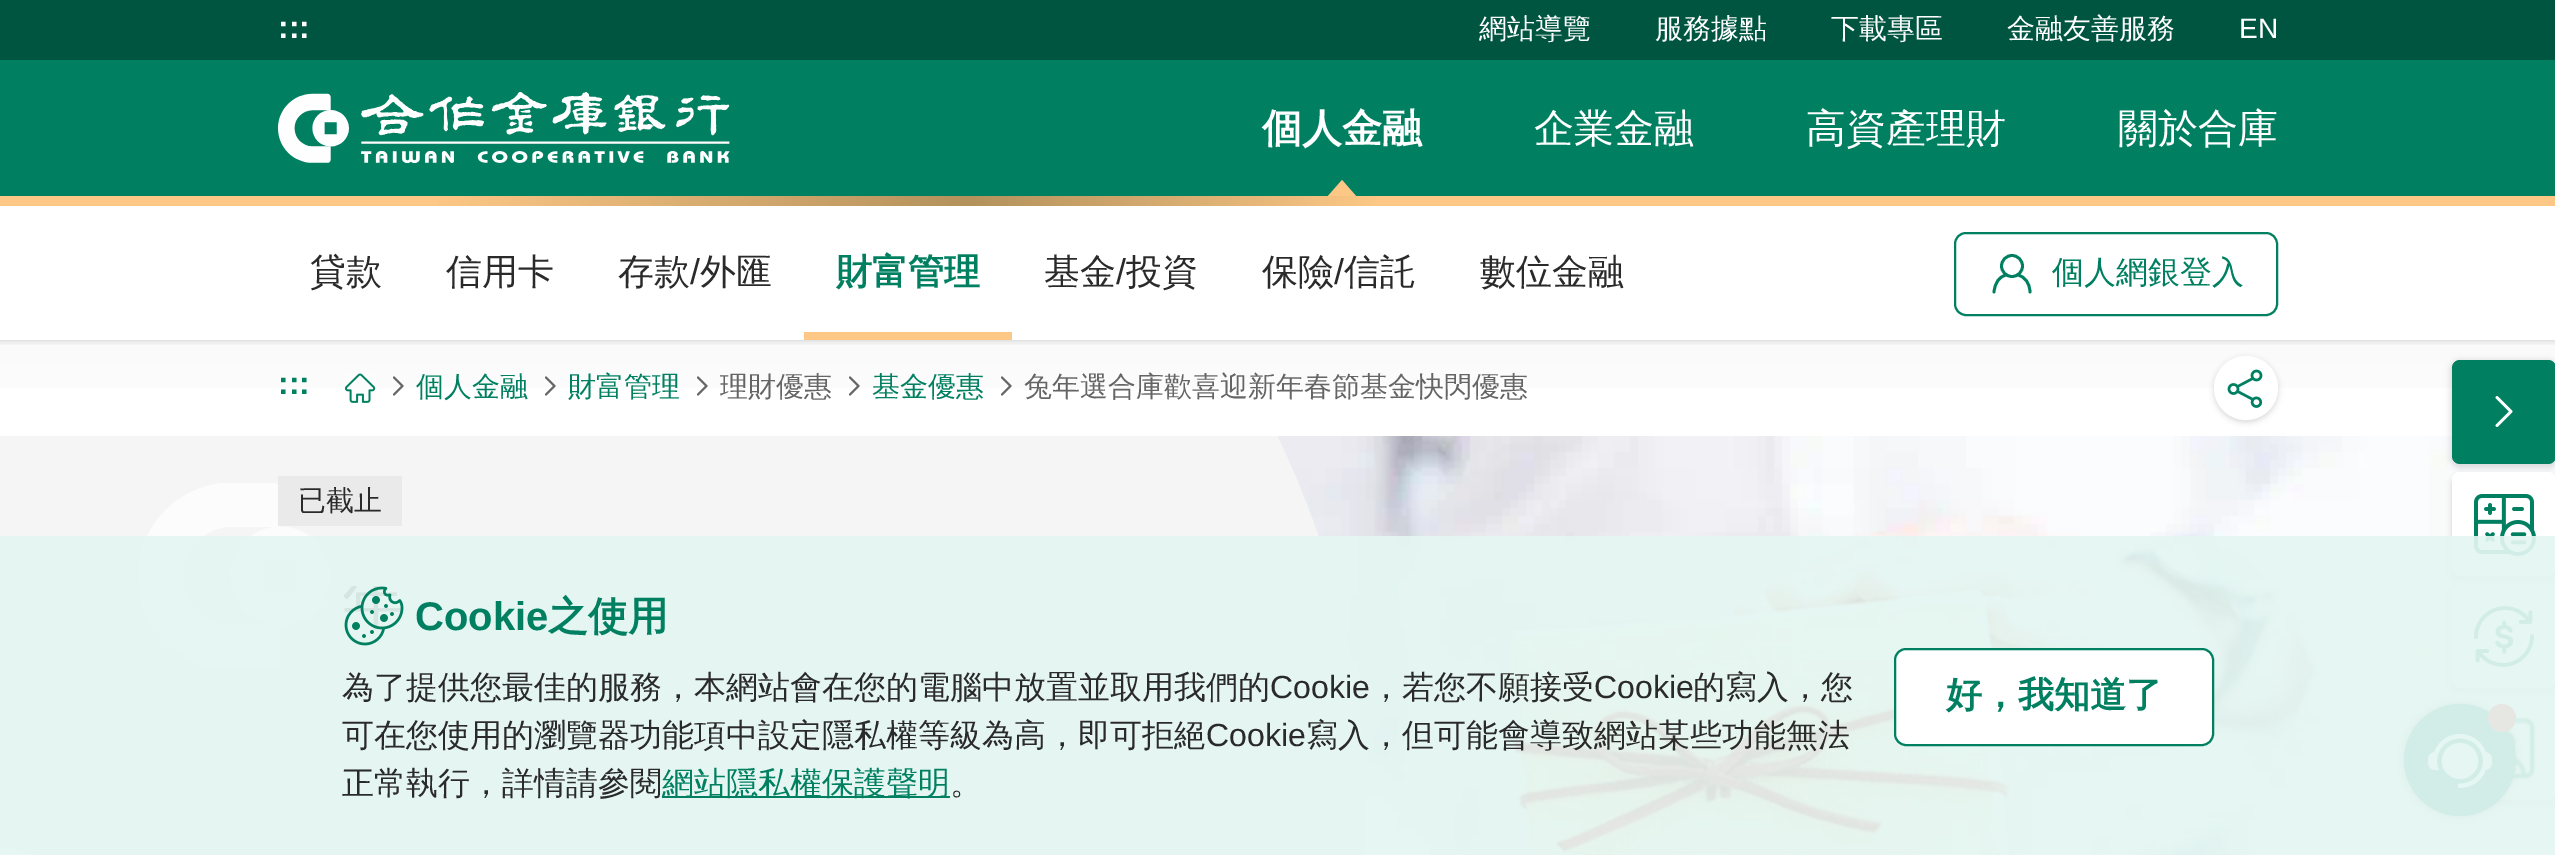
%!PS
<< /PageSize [2555 855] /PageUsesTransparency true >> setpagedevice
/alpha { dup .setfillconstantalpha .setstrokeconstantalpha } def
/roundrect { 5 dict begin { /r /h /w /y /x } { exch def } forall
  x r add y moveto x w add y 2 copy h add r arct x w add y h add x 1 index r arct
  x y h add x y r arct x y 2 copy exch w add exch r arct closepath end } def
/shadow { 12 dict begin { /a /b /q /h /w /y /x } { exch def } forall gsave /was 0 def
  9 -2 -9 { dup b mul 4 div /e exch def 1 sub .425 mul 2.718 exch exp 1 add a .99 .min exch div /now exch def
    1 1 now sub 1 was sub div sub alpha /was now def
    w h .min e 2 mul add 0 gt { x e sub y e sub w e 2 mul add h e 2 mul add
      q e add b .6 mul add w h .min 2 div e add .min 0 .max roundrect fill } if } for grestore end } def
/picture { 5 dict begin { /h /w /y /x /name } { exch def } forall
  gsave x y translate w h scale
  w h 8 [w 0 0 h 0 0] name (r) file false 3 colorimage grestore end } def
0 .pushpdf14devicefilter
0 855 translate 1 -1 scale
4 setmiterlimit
1 setgray
0 0 2555 855 rectfill
gsave newpath 0 340 moveto 2555 340 lineto 2555 388 lineto 0 388 lineto closepath clip newpath
<< /ShadingType 2 /ColorSpace /DeviceRGB /Coords [1278 340 1278 436] /Extend [true true] /Function << /FunctionType 2 /Domain [0 1] /C0 [0.98 0.98 0.98] /C1 [1 1 1] /N 1 >> >> shfill grestore
(img2.rgb) 345 373 31 30 picture
0.396 setgray
2 setlinewidth
1 setlinecap
1 setlinejoin
newpath 394 377.5 moveto 402.5 386 lineto 394 394.5 lineto stroke
/WenQuanYiZenHei-Medium [28 0 0 -28 0 0] selectfont
0 0.502 0.38 setrgbcolor
416 396 moveto (個人金融) show
0.396 setgray
newpath 546 377.5 moveto 554.5 386 lineto 546 394.5 lineto stroke
0 0.502 0.38 setrgbcolor
568 396 moveto (財富管理) show
0.396 setgray
newpath 698 377.5 moveto 706.5 386 lineto 698 394.5 lineto stroke
720 396 moveto (理財優惠) show
newpath 850 377.5 moveto 858.5 386 lineto 850 394.5 lineto stroke
0 0.502 0.38 setrgbcolor
872 396 moveto (基金優惠) show
0.396 setgray
newpath 1002 377.5 moveto 1010.5 386 lineto 1002 394.5 lineto stroke
1024 396 moveto (兔年選合庫歡喜迎新年春節基金快閃優惠) show
0.961 setgray
1277 436 1 2 rectfill
(img6.rgb) 1278 436 1277 419 picture
gsave
0 436 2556 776 rectclip
newpath 476 824 890 0 360 arc closepath fill
grestore
0 0.333 0.251 setrgbcolor
0 0 2555 60 rectfill
/LiberationSans-Bold [32 0 0 -32 0 0] selectfont
1 setgray
278 38 moveto (:::) show
/WenQuanYiZenHei-Medium [28 0 0 -28 0 0] selectfont
1479 38 moveto (網站導覽) show
1655 38 moveto (服務據點) show
1831 38 moveto (下載專區) show
2007 38 moveto (金融友善服務) show
/LiberationSans-Regular [28 0 0 -28 0 0] selectfont
2239 38 moveto (EN) show
gsave
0 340 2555 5 rectclip
0 setgray
0 204 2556 134 0 5 0.3 shadow
grestore
0 0.502 0.38 setrgbcolor
0 60 2555 136 rectfill
(img1.rgb) 278 92 452 71 picture
/WenQuanYiZenHei-Bold [40 0 0 -40 0 0] selectfont
1 setgray
1262 142 moveto (個人金融) show
0.992 0.784 0.522 setrgbcolor
newpath 1356 196 moveto 1328 196 lineto 1342 180 lineto closepath fill
/WenQuanYiZenHei-Medium [40 0 0 -40 0 0] selectfont
1 setgray
1534 142 moveto (企業金融) show
1806 142 moveto (高資產理財) show
2118 142 moveto (關於合庫) show
gsave newpath 0 196 moveto 2555 196 lineto 2555 206 lineto 0 206 lineto closepath clip newpath
<< /ShadingType 2 /ColorSpace /DeviceRGB /Coords [0.3 179 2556 223] /Extend [true true] /Function << /FunctionType 3 /Domain [0 1] /Functions [<< /FunctionType 2 /Domain [0 1] /C0 [0.992 0.784 0.522] /C1 [0.992 0.784 0.522] /N 1 >> << /FunctionType 2 /Domain [0 1] /C0 [0.992 0.784 0.522] /C1 [0.702 0.573 0.361] /N 1 >> << /FunctionType 2 /Domain [0 1] /C0 [0.702 0.573 0.361] /C1 [0.992 0.784 0.522] /N 1 >> << /FunctionType 2 /Domain [0 1] /C0 [0.992 0.784 0.522] /C1 [0.992 0.784 0.522] /N 1 >>] /Bounds [0.17 0.38 0.54] /Encode [0 1 0 1 0 1 0 1] >> >> shfill grestore
/WenQuanYiZenHei-Medium [36 0 0 -36 0 0] selectfont
0.165 setgray
310 284 moveto (貸款) show
446 284 moveto (信用卡) show
618 284 moveto (存款) show
/LiberationSans-Regular [36 0 0 -36 0 0] selectfont
690 284 moveto (/) show
/WenQuanYiZenHei-Medium [36 0 0 -36 0 0] selectfont
700 284 moveto (外匯) show
/WenQuanYiZenHei-Bold [36 0 0 -36 0 0] selectfont
0 0.502 0.38 setrgbcolor
836 284 moveto (財富管理) show
0.992 0.784 0.522 setrgbcolor
804 332 208 8 rectfill
/WenQuanYiZenHei-Medium [36 0 0 -36 0 0] selectfont
0.165 setgray
1044 284 moveto (基金) show
/LiberationSans-Regular [36 0 0 -36 0 0] selectfont
1116 284 moveto (/) show
/WenQuanYiZenHei-Medium [36 0 0 -36 0 0] selectfont
1126 284 moveto (投資) show
1262 284 moveto (保險) show
/LiberationSans-Regular [36 0 0 -36 0 0] selectfont
1334 284 moveto (/) show
/WenQuanYiZenHei-Medium [36 0 0 -36 0 0] selectfont
1344 284 moveto (信託) show
1480 284 moveto (數位金融) show
0 0.502 0.38 setrgbcolor
0 setlinecap
0 setlinejoin
1955 233 322 82 11 roundrect stroke
2.8 setlinewidth
newpath 2012 266 10.5 0 360 arc closepath stroke
1 setlinecap
1 setlinejoin
newpath 1994 292 moveto 1995 282.5 1999 277 2006 275 curveto 2030 292 moveto 2029.5 282.5 2025 277 2018 275 curveto stroke
/WenQuanYiZenHei-Medium [32 0 0 -32 0 0] selectfont
2052 283 moveto (個人網銀登入) show
/LiberationSans-Bold [32 0 0 -32 0 0] selectfont
278 394 moveto (:::) show
0 setgray
2214 358 64 64 32 3 0.15 shadow
1 setgray
newpath 2246 388 32 0 360 arc closepath fill
(img3.rgb) 2227 369 36 39 picture
(img4.rgb) 138 483 192 187 picture
0.918 setgray
278 476 124 50 rectfill
/WenQuanYiZenHei-Medium [28 0 0 -28 0 0] selectfont
0.165 setgray
298 510 moveto (已截止) show
(img5.rgb) 0 847 33 8 picture
0 setgray
2452 476 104 104 8 3 0.16 shadow
2450 360 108 108 10 3 0.12 shadow
1 setgray
2452 472 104 104 8 roundrect fill
(img8.rgb) 2474 494 62 62 picture
0 setgray
2452 588 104 104 8 3 0.16 shadow
1 setgray
2452 584 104 104 8 roundrect fill
(img9.rgb) 2474 606 60 61 picture
0 setgray
2452 700 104 104 8 3 0.16 shadow
1 setgray
2452 696 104 104 8 roundrect fill
(img10.rgb) 2507 717 30 64 picture
0 setgray
2404 704 112 112 56 4 0.5 shadow
0 0.502 0.38 setrgbcolor
newpath 2460 760 56 0 360 arc closepath fill
1 0.224 0.224 setrgbcolor
newpath 2502 718 14 0 360 arc closepath fill
(img11.rgb) 2428 734 64 54 picture
0.92 alpha
0.894 0.965 0.949 setrgbcolor
0 536 2555 319 rectfill
1 alpha
(img7.rgb) 344 586 60 60 picture
/LiberationSans-Bold [40 0 0 -40 0 0] selectfont
0 0.502 0.38 setrgbcolor
415 630 moveto (Cookie) show
/WenQuanYiZenHei-Bold [40 0 0 -40 0 0] selectfont
548 630 moveto (之使用) show
/WenQuanYiZenHei-Medium [32 0 0 -32 0 0] selectfont
0.165 setgray
342 698 moveto (為了提供您最佳的服務，本網站會在您的電腦中放置並取用我們的) show
/LiberationSans-Regular [32 0 0 -32 0 0] selectfont
1270 698 moveto (Cookie) show
/WenQuanYiZenHei-Medium [32 0 0 -32 0 0] selectfont
1370 698 moveto (，若您不願接受) show
/LiberationSans-Regular [32 0 0 -32 0 0] selectfont
1594 698 moveto (Cookie) show
/WenQuanYiZenHei-Medium [32 0 0 -32 0 0] selectfont
1693 698 moveto (的寫入，您) show
342 746 moveto (可在您使用的瀏覽器功能項中設定隱私權等級為高，即可拒絕) show
/LiberationSans-Regular [32 0 0 -32 0 0] selectfont
1206 746 moveto (Cookie) show
/WenQuanYiZenHei-Medium [32 0 0 -32 0 0] selectfont
1306 746 moveto (寫入，但可能會導致網站某些功能無法) show
342 794 moveto (正常執行，詳情請參閱) show
0 0.502 0.38 setrgbcolor
662 796 288 2 rectfill
662 794 moveto (網站隱私權保護聲明) show
0.165 setgray
950 794 moveto (。) show
1 setgray
1895 649 318 96 11 roundrect gsave fill grestore
0 0.502 0.38 setrgbcolor
2 setlinewidth
0 setlinecap
0 setlinejoin
stroke
/WenQuanYiZenHei-Bold [36 0 0 -36 0 0] selectfont
1946 707 moveto (好，我知道了) show
2452 360 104 104 8 roundrect fill
1 setgray
2.8 setlinewidth
1 setlinecap
1 setlinejoin
newpath 2497 397.5 moveto 2511 411.5 lineto 2497 425.5 lineto stroke
.poppdf14devicefilter showpage
